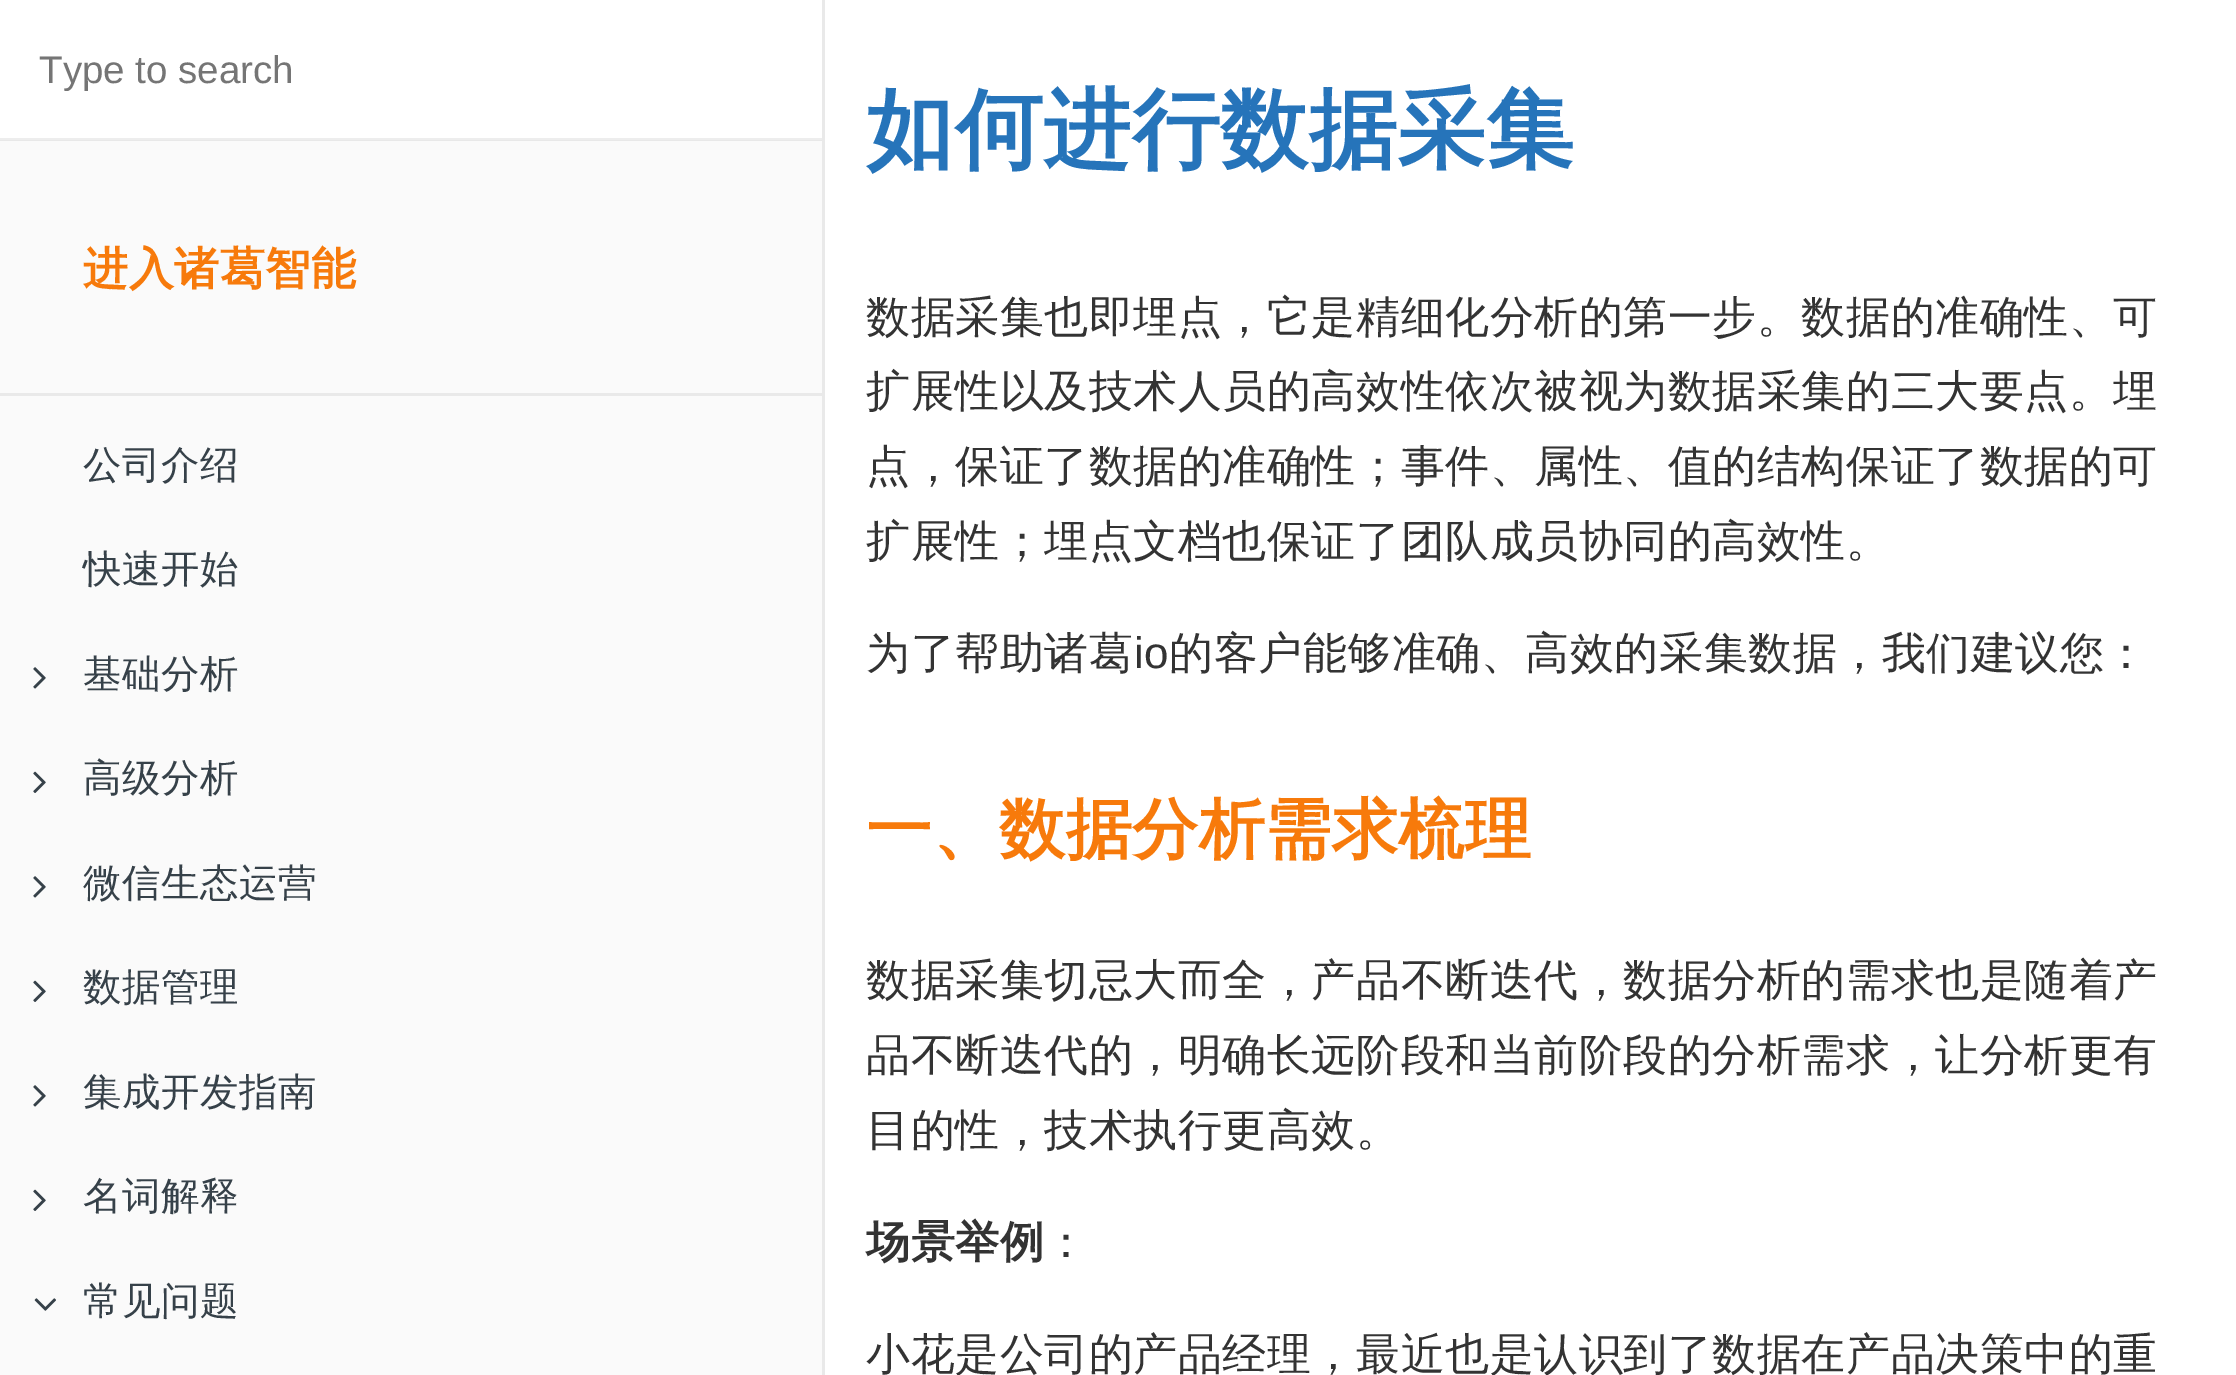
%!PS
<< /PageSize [2236 1375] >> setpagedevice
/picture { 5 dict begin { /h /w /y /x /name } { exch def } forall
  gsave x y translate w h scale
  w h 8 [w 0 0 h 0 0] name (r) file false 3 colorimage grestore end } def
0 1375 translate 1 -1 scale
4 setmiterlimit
1 setgray
0 0 2236 1375 rectfill
0.98 setgray
0 141 822 1234 rectfill
0.91 setgray
0 140 822 1 rectfill
0.914 setgray
822 0 3 1375 rectfill
0.929 setgray
0 138 822 2 rectfill
/LiberationSans-Regular [38.5 0 0 -38.5 0 0] selectfont
0.459 setgray
39 83 moveto (Type to search) show
/WenQuanYiZenHei-Bold [45 0 0 -45 0 0] selectfont
0.969 0.478 0.043 setrgbcolor
83 284 moveto 0.55 0 (进入诸葛智能) ashow
0.914 setgray
0 393 822 3 rectfill
/WenQuanYiZenHei-Medium [38.5 0 0 -38.5 0 0] selectfont
0.212 0.255 0.286 setrgbcolor
83 478 moveto 0.55 0 (公司介绍) ashow
83 582 moveto 0.55 0 (快速开始) ashow
(img1.rgb) 33 667 13 22 picture
83 687 moveto 0.55 0 (基础分析) ashow
(img2.rgb) 33 771 13 22 picture
83 791 moveto 0.55 0 (高级分析) ashow
(img1.rgb) 33 876 13 22 picture
83 896 moveto 0.55 0 (微信生态运营) ashow
(img2.rgb) 33 980 13 22 picture
83 1000 moveto 0.55 0 (数据管理) ashow
(img1.rgb) 33 1085 13 22 picture
83 1105 moveto 0.55 0 (集成开发指南) ashow
(img2.rgb) 33 1189 13 22 picture
83 1209 moveto 0.55 0 (名词解释) ashow
(img3.rgb) 34 1298 22 13 picture
83 1314 moveto 0.55 0 (常见问题) ashow
/WenQuanYiZenHei-Bold [88 0 0 -88 0 0] selectfont
0.149 0.455 0.729 setrgbcolor
866 160 moveto 0.55 0 (如何进行数据采集) ashow
/WenQuanYiZenHei-Medium [44 0 0 -44 0 0] selectfont
0.2 setgray
866 332 moveto 0.55 0 (数据采集也即埋点，它是精细化分析的第一步。数据的准确性、可) ashow
866 406 moveto 0.55 0 (扩展性以及技术人员的高效性依次被视为数据采集的三大要点。埋) ashow
866 481 moveto 0.55 0 (点，保证了数据的准确性；事件、属性、值的结构保证了数据的可) ashow
866 556 moveto 0.55 0 (扩展性；埋点文档也保证了团队成员协同的高效性。) ashow
866 668 moveto 0.55 0 (为了帮助诸葛) ashow
/LiberationSans-Regular [44 0 0 -44 0 0] selectfont
1134 668 moveto 0.55 0 (io) ashow
/WenQuanYiZenHei-Medium [44 0 0 -44 0 0] selectfont
1169 668 moveto 0.55 0 (的客户能够准确、高效的采集数据，我们建议您：) ashow
/WenQuanYiZenHei-Bold [66 0 0 -66 0 0] selectfont
0.969 0.478 0.043 setrgbcolor
866 852 moveto 0.55 0 (一、数据分析需求梳理) ashow
/WenQuanYiZenHei-Medium [44 0 0 -44 0 0] selectfont
0.2 setgray
866 995 moveto 0.55 0 (数据采集切忌大而全，产品不断迭代，数据分析的需求也是随着产) ashow
866 1070 moveto 0.55 0 (品不断迭代的，明确长远阶段和当前阶段的分析需求，让分析更有) ashow
866 1145 moveto 0.55 0 (目的性，技术执行更高效。) ashow
/WenQuanYiZenHei-Bold [44 0 0 -44 0 0] selectfont
866 1257 moveto 0.55 0 (场景举例) ashow
/WenQuanYiZenHei-Medium [44 0 0 -44 0 0] selectfont
1044 1257 moveto 0.55 0 (：) ashow
866 1369 moveto 0.55 0 (小花是公司的产品经理，最近也是认识到了数据在产品决策中的重) ashow
showpage
